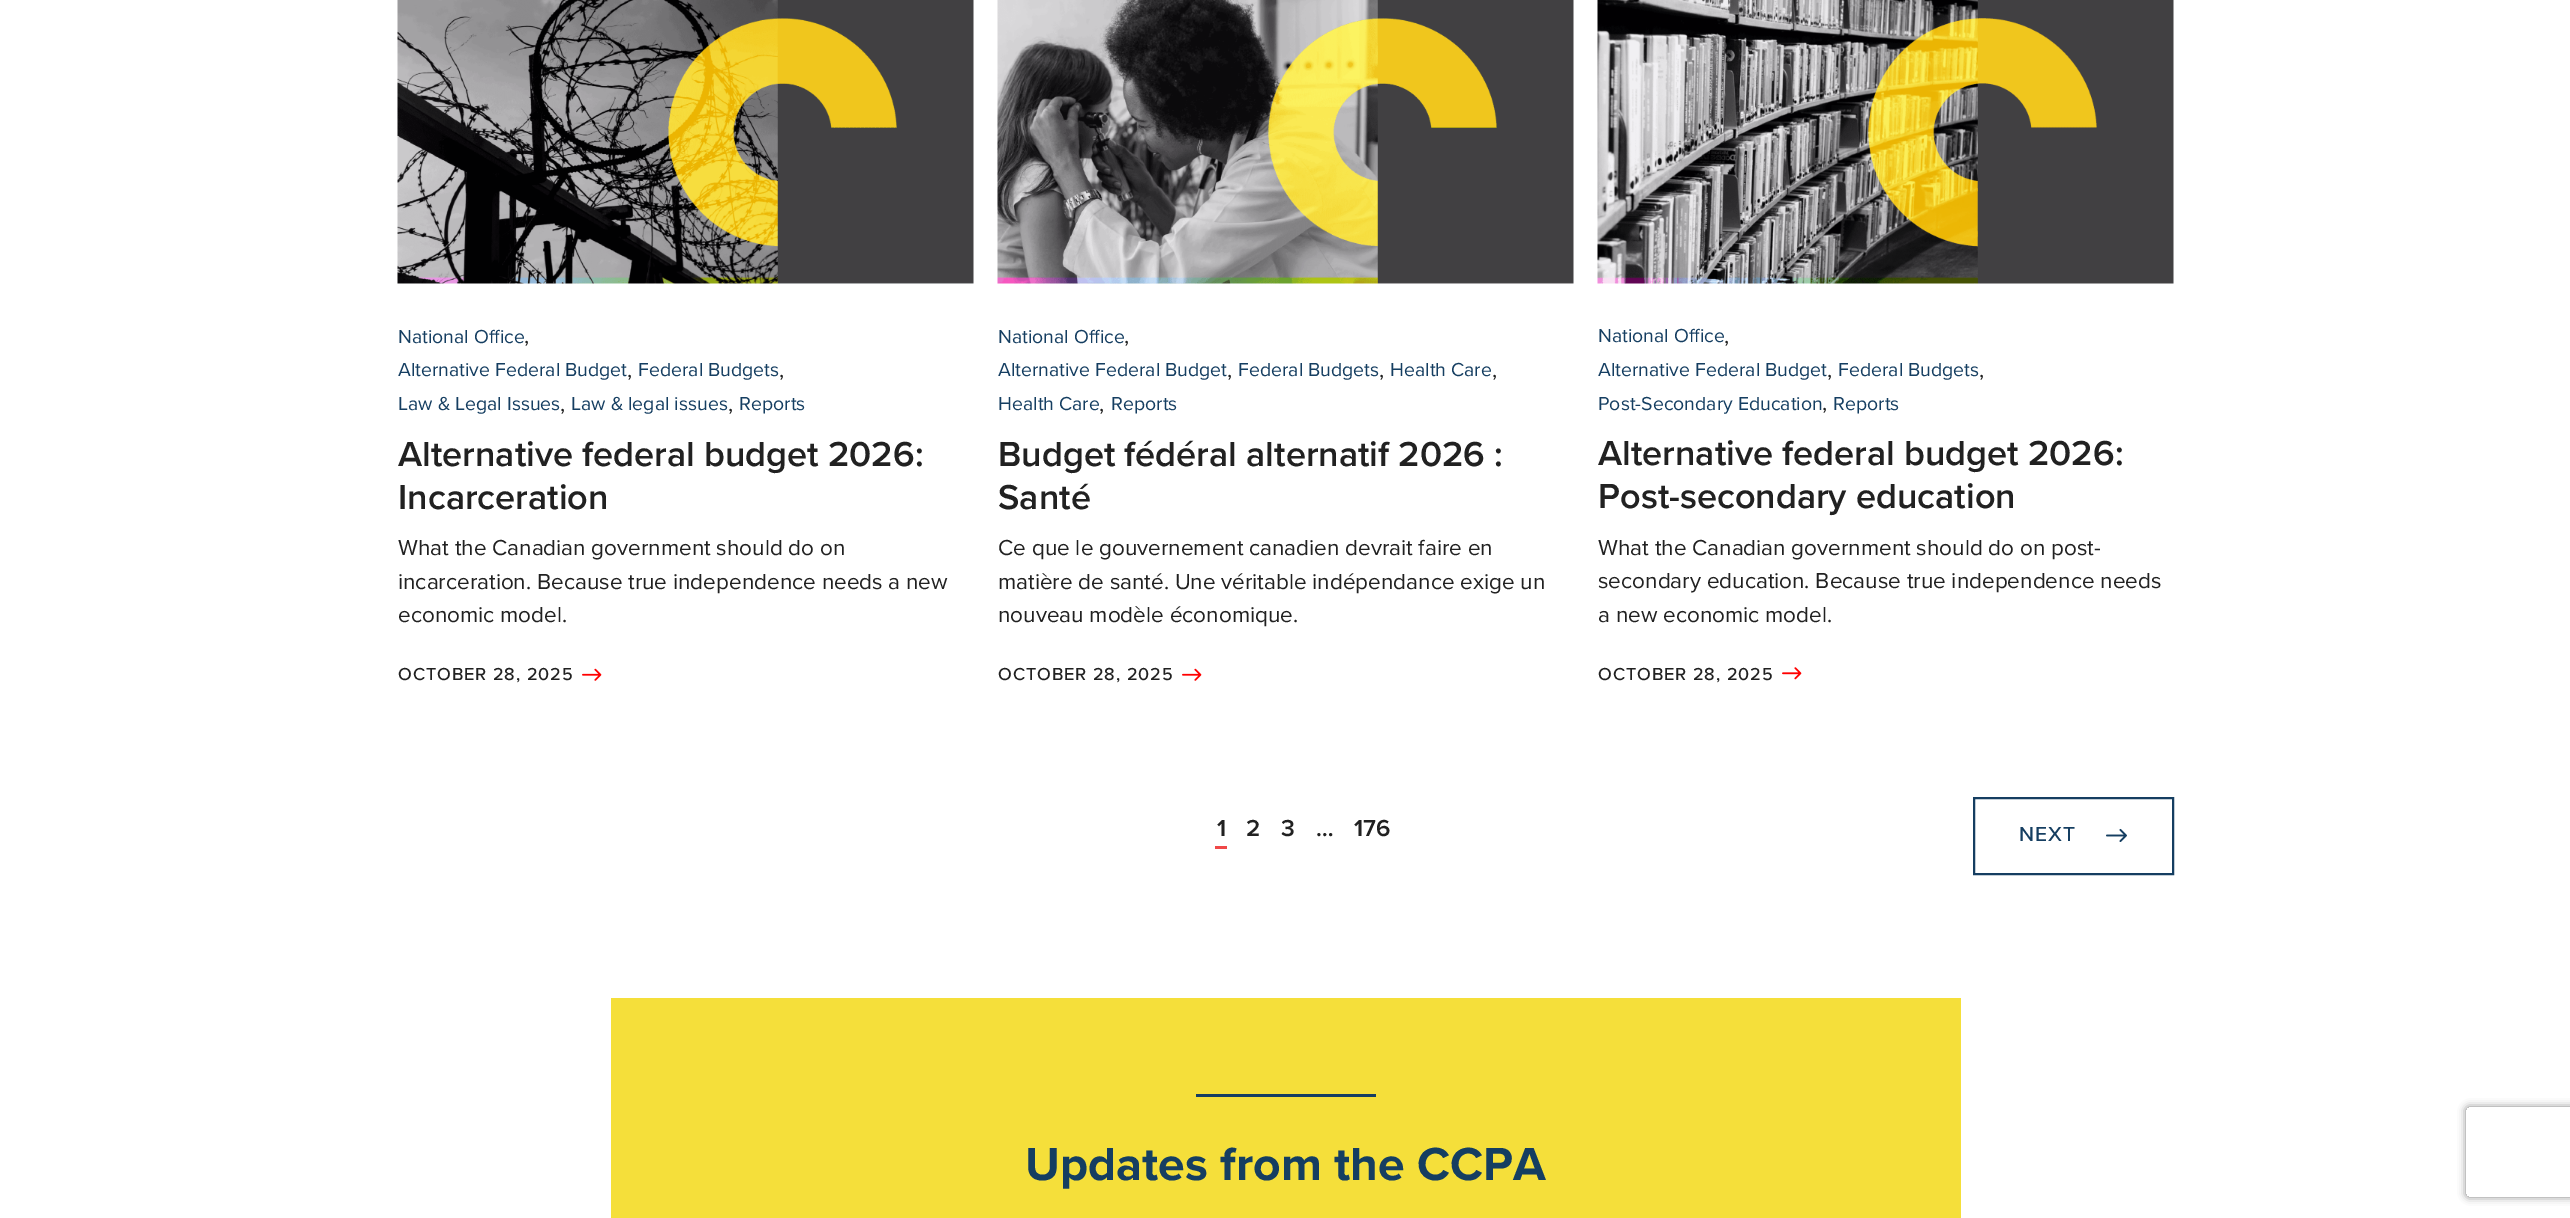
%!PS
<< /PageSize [2570 1218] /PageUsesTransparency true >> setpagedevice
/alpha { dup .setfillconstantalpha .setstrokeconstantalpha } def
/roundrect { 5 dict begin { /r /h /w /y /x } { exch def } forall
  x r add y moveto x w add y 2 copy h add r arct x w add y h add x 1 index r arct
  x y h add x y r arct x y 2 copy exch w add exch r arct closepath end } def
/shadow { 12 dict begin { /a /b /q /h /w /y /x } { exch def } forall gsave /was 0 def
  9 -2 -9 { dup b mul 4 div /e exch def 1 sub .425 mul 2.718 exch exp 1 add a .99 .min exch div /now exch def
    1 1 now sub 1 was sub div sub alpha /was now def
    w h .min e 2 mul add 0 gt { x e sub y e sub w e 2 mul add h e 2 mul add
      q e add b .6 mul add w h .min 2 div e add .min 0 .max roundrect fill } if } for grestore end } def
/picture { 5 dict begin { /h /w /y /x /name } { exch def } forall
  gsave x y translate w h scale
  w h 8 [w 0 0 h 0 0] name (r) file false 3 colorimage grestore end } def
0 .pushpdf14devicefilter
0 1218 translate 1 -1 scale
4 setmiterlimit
1 setgray
0 0 2570 1218 rectfill
(img1.rgb) 397 0 577 284 picture
/ProximaNova-Regular [19.5 0 0 -19.5 0 0] selectfont
0.082 0.243 0.38 setrgbcolor
398 343 moveto (National Office) show
/ProximaNova-Regular [22.5 0 0 -22.5 0 0] selectfont
0.129 setgray
524 343 moveto (,) show
/ProximaNova-Regular [19.5 0 0 -19.5 0 0] selectfont
0.082 0.243 0.38 setrgbcolor
398 376 moveto (Alternative Federal Budget) show
/ProximaNova-Regular [22.5 0 0 -22.5 0 0] selectfont
0.129 setgray
627 377 moveto (,) show
/ProximaNova-Regular [19.5 0 0 -19.5 0 0] selectfont
0.082 0.243 0.38 setrgbcolor
638 376 moveto (Federal Budgets) show
/ProximaNova-Regular [22.5 0 0 -22.5 0 0] selectfont
0.129 setgray
779 377 moveto (,) show
/ProximaNova-Regular [19.5 0 0 -19.5 0 0] selectfont
0.082 0.243 0.38 setrgbcolor
398 410 moveto (Law & Legal Issues) show
/ProximaNova-Regular [22.5 0 0 -22.5 0 0] selectfont
0.129 setgray
560 411 moveto (,) show
/ProximaNova-Regular [19.5 0 0 -19.5 0 0] selectfont
0.082 0.243 0.38 setrgbcolor
571 410 moveto (Law & legal issues) show
/ProximaNova-Regular [22.5 0 0 -22.5 0 0] selectfont
0.129 setgray
728 411 moveto (,) show
/ProximaNova-Regular [19.5 0 0 -19.5 0 0] selectfont
0.082 0.243 0.38 setrgbcolor
739 410 moveto (Reports) show
/ProximaNova-SemiBold [36 0 0 -36 0 0] selectfont
0.129 setgray
398 466 moveto (Alternative federal budget 2026:) show
398 509 moveto (Incarceration) show
/ProximaNova-Regular [22.5 0 0 -22.5 0 0] selectfont
398 555 moveto (What the Canadian government should do on) show
398 589 moveto (incarceration. Because true independence needs a new) show
398 622 moveto (economic model.) show
/ProximaNova-Medium [18 0 0 -18 0 0] selectfont
398 680 moveto 0.9 0 (OCTOBER 28, 2025) ashow
(img2.rgb) 582 668 20 13 picture
(img3.rgb) 997 0 577 284 picture
/ProximaNova-Regular [19.5 0 0 -19.5 0 0] selectfont
0.082 0.243 0.38 setrgbcolor
998 343 moveto (National Office) show
/ProximaNova-Regular [22.5 0 0 -22.5 0 0] selectfont
0.129 setgray
1124 343 moveto (,) show
/ProximaNova-Regular [19.5 0 0 -19.5 0 0] selectfont
0.082 0.243 0.38 setrgbcolor
998 376 moveto (Alternative Federal Budget) show
/ProximaNova-Regular [22.5 0 0 -22.5 0 0] selectfont
0.129 setgray
1227 377 moveto (,) show
/ProximaNova-Regular [19.5 0 0 -19.5 0 0] selectfont
0.082 0.243 0.38 setrgbcolor
1238 376 moveto (Federal Budgets) show
/ProximaNova-Regular [22.5 0 0 -22.5 0 0] selectfont
0.129 setgray
1379 377 moveto (,) show
/ProximaNova-Regular [19.5 0 0 -19.5 0 0] selectfont
0.082 0.243 0.38 setrgbcolor
1390 376 moveto (Health Care) show
/ProximaNova-Regular [22.5 0 0 -22.5 0 0] selectfont
0.129 setgray
1492 377 moveto (,) show
/ProximaNova-Regular [19.5 0 0 -19.5 0 0] selectfont
0.082 0.243 0.38 setrgbcolor
998 410 moveto (Health Care) show
/ProximaNova-Regular [22.5 0 0 -22.5 0 0] selectfont
0.129 setgray
1099 411 moveto (,) show
/ProximaNova-Regular [19.5 0 0 -19.5 0 0] selectfont
0.082 0.243 0.38 setrgbcolor
1111 410 moveto (Reports) show
/ProximaNova-SemiBold [36 0 0 -36 0 0] selectfont
0.129 setgray
998 466 moveto (Budget fédéral alternatif 2026 :) show
998 509 moveto (Santé) show
/ProximaNova-Regular [22.5 0 0 -22.5 0 0] selectfont
998 555 moveto (Ce que le gouvernement canadien devrait faire en) show
998 589 moveto (matière de santé. Une véritable indépendance exige un) show
998 622 moveto (nouveau modèle économique.) show
/ProximaNova-Medium [18 0 0 -18 0 0] selectfont
998 680 moveto 0.9 0 (OCTOBER 28, 2025) ashow
(img2.rgb) 1182 668 20 13 picture
(img4.rgb) 1597 0 577 284 picture
/ProximaNova-Regular [19.5 0 0 -19.5 0 0] selectfont
0.082 0.243 0.38 setrgbcolor
1598 342 moveto (National Office) show
/ProximaNova-Regular [22.5 0 0 -22.5 0 0] selectfont
0.129 setgray
1724 343 moveto (,) show
/ProximaNova-Regular [19.5 0 0 -19.5 0 0] selectfont
0.082 0.243 0.38 setrgbcolor
1598 376 moveto (Alternative Federal Budget) show
/ProximaNova-Regular [22.5 0 0 -22.5 0 0] selectfont
0.129 setgray
1827 377 moveto (,) show
/ProximaNova-Regular [19.5 0 0 -19.5 0 0] selectfont
0.082 0.243 0.38 setrgbcolor
1838 376 moveto (Federal Budgets) show
/ProximaNova-Regular [22.5 0 0 -22.5 0 0] selectfont
0.129 setgray
1979 377 moveto (,) show
/ProximaNova-Regular [19.5 0 0 -19.5 0 0] selectfont
0.082 0.243 0.38 setrgbcolor
1598 410 moveto (Post-Secondary Education) show
/ProximaNova-Regular [22.5 0 0 -22.5 0 0] selectfont
0.129 setgray
1822 410 moveto (,) show
/ProximaNova-Regular [19.5 0 0 -19.5 0 0] selectfont
0.082 0.243 0.38 setrgbcolor
1833 410 moveto (Reports) show
/ProximaNova-SemiBold [36 0 0 -36 0 0] selectfont
0.129 setgray
1598 465 moveto (Alternative federal budget 2026:) show
1598 508 moveto (Post-secondary education) show
/ProximaNova-Regular [22.5 0 0 -22.5 0 0] selectfont
1598 555 moveto (What the Canadian government should do on post-) show
1598 588 moveto (secondary education. Because true independence needs) show
1598 622 moveto (a new economic model.) show
/ProximaNova-Medium [18 0 0 -18 0 0] selectfont
1598 680 moveto 0.9 0 (OCTOBER 28, 2025) ashow
(img5.rgb) 1782 667 20 13 picture
/ProximaNova-SemiBold [24 0 0 -24 0 0] selectfont
1217 836 moveto (1) show
0.941 0.282 0.282 setrgbcolor
1215 846 12 3 rectfill
0.129 setgray
1246 836 moveto (2) show
1281 836 moveto (3) show
1316 836 moveto (…) show
1354 836 moveto (176) show
0.082 0.243 0.38 setrgbcolor
2 setlinewidth
1974 798 199 76 rectstroke
/ProximaNova-Medium [21 0 0 -21 0 0] selectfont
2019 841 moveto 1 0 (NEXT) ashow
(img6.rgb) 2106 828 21 14 picture
0.961 0.875 0.227 setrgbcolor
611 998 1350 220 rectfill
0.082 0.243 0.38 setrgbcolor
1196 1094 180 3 rectfill
/ProximaNova-Bold [48 0 0 -48 0 0] selectfont
1025 1180 moveto (Updates from the CCPA) show
gsave
newpath 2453 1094 moveto 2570 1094 lineto 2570 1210 lineto 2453 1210 lineto closepath 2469 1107 moveto 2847 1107 lineto 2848.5 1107 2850 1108.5 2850 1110 curveto 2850 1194 lineto 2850 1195.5 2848.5 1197 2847 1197 curveto 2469 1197 lineto 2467.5 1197 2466 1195.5 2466 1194 curveto 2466 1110 lineto 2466 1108.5 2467.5 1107 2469 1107 curveto closepath eoclip newpath
0.502 setgray
2466 1107 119 90 3 4 1 shadow
grestore
.poppdf14devicefilter showpage
